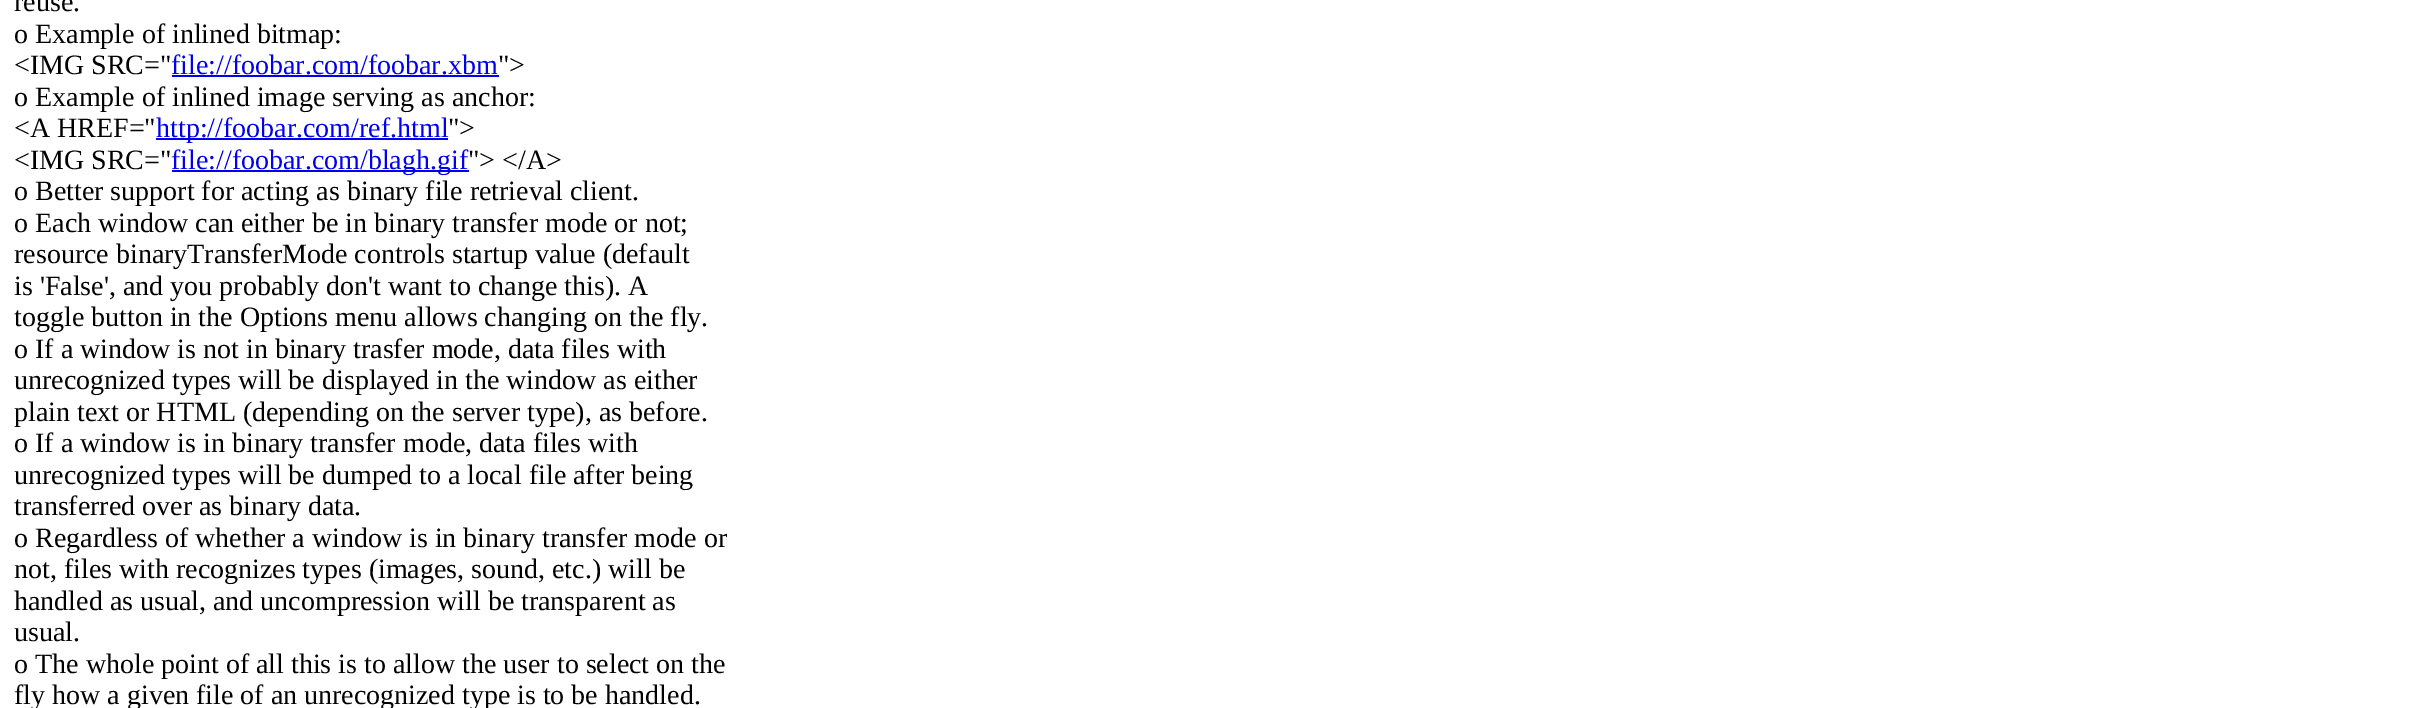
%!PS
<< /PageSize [2436 708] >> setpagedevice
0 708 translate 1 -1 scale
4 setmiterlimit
1 setgray
0 0 2436 708 rectfill
/LiberationSerif-Regular [28 0 0 -28 0 0] selectfont
0 setgray
14 11 moveto (reuse.) show
14 43 moveto (o Example of inlined bitmap:) show
14 74 moveto (<IMG SRC=") show
0 0 0.933 setrgbcolor
171 74 moveto (file://foobar.com/foobar.xbm) show
172 75 327 2 rectfill
0 setgray
498 74 moveto (">) show
14 106 moveto (o Example of inlined image serving as anchor:) show
14 137 moveto (<A HREF=") show
0 0 0.933 setrgbcolor
156 138 292 2 rectfill
156 137 moveto (http://foobar.com/ref.html) show
0 setgray
448 137 moveto (">) show
14 169 moveto (<IMG SRC=") show
0 0 0.933 setrgbcolor
172 170 297 2 rectfill
171 169 moveto (file://foobar.com/blagh.gif) show
0 setgray
468 169 moveto ("> </A>) show
14 200 moveto (o Better support for acting as binary file retrieval client.) show
14 232 moveto (o Each window can either be in binary transfer mode or not;) show
14 263 moveto (resource binaryTransferMode controls startup value \(default) show
14 295 moveto (is 'False', and you probably don't want to change this\). A) show
14 326 moveto (toggle button in the Options menu allows changing on the fly.) show
14 358 moveto (o If a window is not in binary trasfer mode, data files with) show
14 389 moveto (unrecognized types will be displayed in the window as either) show
14 421 moveto (plain text or HTML \(depending on the server type\), as before.) show
14 452 moveto (o If a window is in binary transfer mode, data files with) show
14 484 moveto (unrecognized types will be dumped to a local file after being) show
14 515 moveto (transferred over as binary data.) show
14 547 moveto (o Regardless of whether a window is in binary transfer mode or) show
14 578 moveto (not, files with recognizes types \(images, sound, etc.\) will be) show
14 610 moveto (handled as usual, and uncompression will be transparent as) show
14 641 moveto (usual.) show
14 673 moveto (o The whole point of all this is to allow the user to select on the) show
14 704 moveto (fly how a given file of an unrecognized type is to be handled.) show
showpage
